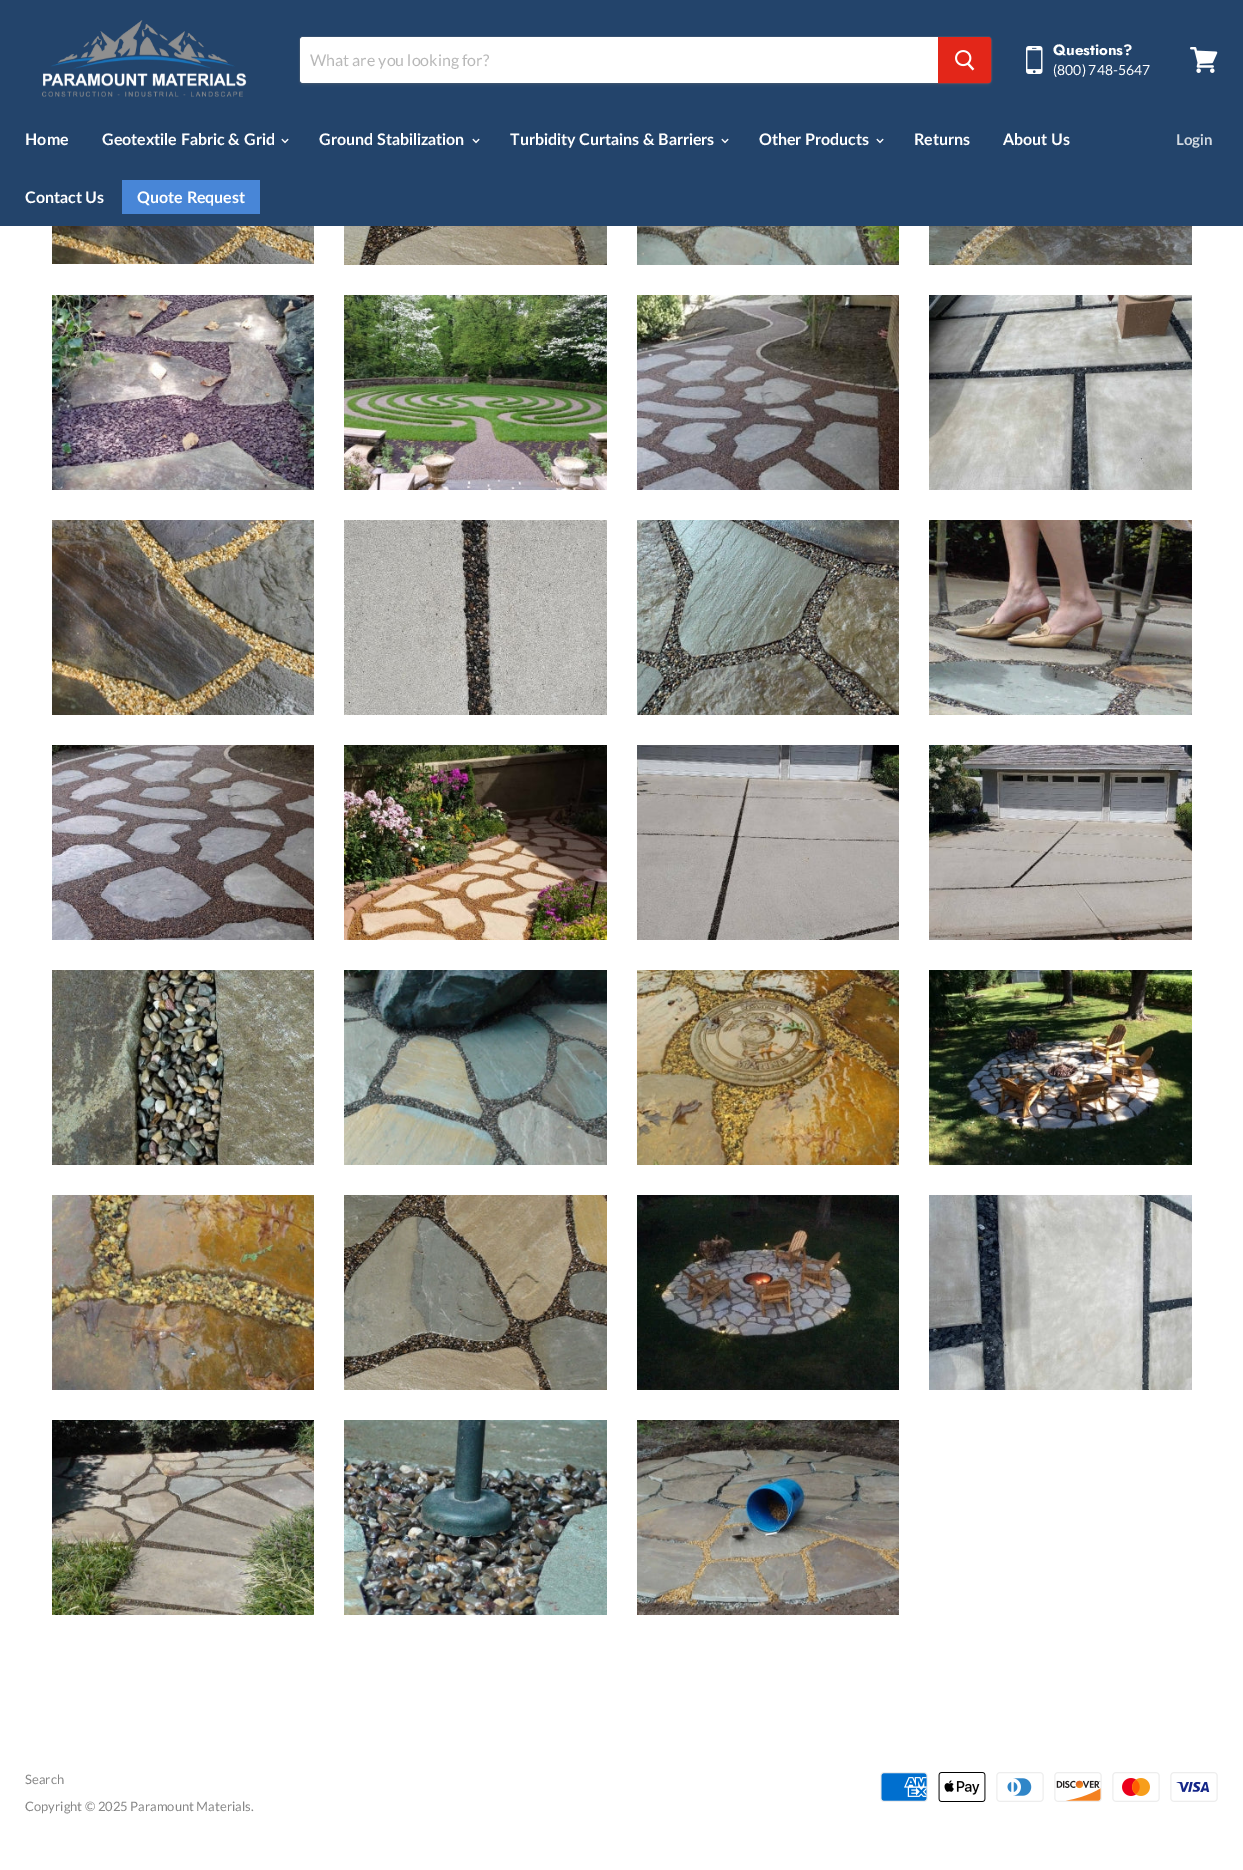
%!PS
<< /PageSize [1243 1870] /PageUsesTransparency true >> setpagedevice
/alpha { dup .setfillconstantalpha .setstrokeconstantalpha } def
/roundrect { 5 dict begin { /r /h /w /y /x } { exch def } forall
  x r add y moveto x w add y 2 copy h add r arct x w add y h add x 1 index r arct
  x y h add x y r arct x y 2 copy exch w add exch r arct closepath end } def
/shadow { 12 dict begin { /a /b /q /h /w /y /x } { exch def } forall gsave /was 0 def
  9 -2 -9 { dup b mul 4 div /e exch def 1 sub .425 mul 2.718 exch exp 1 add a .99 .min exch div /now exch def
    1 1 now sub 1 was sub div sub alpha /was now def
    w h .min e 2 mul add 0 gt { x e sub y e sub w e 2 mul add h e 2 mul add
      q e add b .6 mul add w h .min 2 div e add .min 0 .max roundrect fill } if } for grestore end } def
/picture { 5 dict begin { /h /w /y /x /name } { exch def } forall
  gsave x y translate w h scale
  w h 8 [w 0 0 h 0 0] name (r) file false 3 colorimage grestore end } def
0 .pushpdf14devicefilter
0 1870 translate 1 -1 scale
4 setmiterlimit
1 setgray
0 0 1243 1870 rectfill
0.137 0.267 0.42 setrgbcolor
0 0 1243 226 rectfill
(img1.rgb) 42 20 205 77 picture
0.498 setgray
299 38 693 48 4 1.5 0.11 shadow
0.2 alpha
299.5 36.5 692 47 3.5 roundrect stroke
1 alpha
1 setgray
newpath 303 37 moveto 938 37 lineto 938 83 lineto 303 83 lineto 301.5 83 300 81.5 300 80 curveto 300 40 lineto 300 38.5 301.5 37 303 37 curveto closepath fill
/Lato-Regular [16 0 0 -16 0 0] selectfont
0.722 setgray
310 66 moveto (What are you looking for?) show
0.89 0.149 0.098 setrgbcolor
newpath 938.5 37.5 moveto 988 37.5 lineto 989.5 37.5 990.5 38.5 990.5 40 curveto 990.5 80 lineto 990.5 81.5 989.5 82.5 988 82.5 curveto 938.5 82.5 lineto closepath gsave fill grestore
stroke
(img2.rgb) 955 50 20 21 picture
(img3.rgb) 1026 46 17 28 picture
/Jost-Bold [15 0 0 -15 0 0] selectfont
1 setgray
1053 55 moveto (Questions?) show
/Lato-Regular [14 0 0 -14 0 0] selectfont
1053 75 moveto (\(800\) 748-5647) show
(img4.rgb) 1190 47 28 26 picture
/Lato-Bold [16 0 0 -16 0 0] selectfont
25 145 moveto (Home) show
102 145 moveto (Geotextile Fabric & Grid) show
(img5.rgb) 281 138 8 6 picture
319 145 moveto (Ground Stabilization) show
(img5.rgb) 472 138 8 6 picture
510 145 moveto (Turbidity Curtains & Barriers) show
(img5.rgb) 721 138 8 6 picture
759 145 moveto (Other Products) show
(img5.rgb) 876 138 8 6 picture
914 145 moveto (Returns) show
1003 145 moveto (About Us) show
25 203 moveto (Contact Us) show
0.282 0.525 0.843 setrgbcolor
122 180 138 34 rectfill
1 setgray
137 203 moveto (Quote Request) show
/Lato-Bold [15 0 0 -15 0 0] selectfont
0.827 0.855 0.882 setrgbcolor
1176 145 moveto (Login) show
(img6.rgb) 52 226 262 38 picture
(img7.rgb) 344 226 263 39 picture
(img8.rgb) 637 226 262 39 picture
(img9.rgb) 929 226 263 39 picture
(img10.rgb) 52 295 262 195 picture
(img11.rgb) 344 295 263 195 picture
(img12.rgb) 637 295 262 195 picture
(img13.rgb) 929 295 263 195 picture
(img14.rgb) 52 520 262 195 picture
(img15.rgb) 344 520 263 195 picture
(img16.rgb) 637 520 262 195 picture
(img17.rgb) 929 520 263 195 picture
(img18.rgb) 52 745 262 195 picture
(img19.rgb) 344 745 263 195 picture
(img20.rgb) 637 745 262 195 picture
(img21.rgb) 929 745 263 195 picture
(img22.rgb) 52 970 262 195 picture
(img23.rgb) 344 970 263 195 picture
(img24.rgb) 637 970 262 195 picture
(img25.rgb) 929 970 263 195 picture
(img26.rgb) 52 1195 262 195 picture
(img27.rgb) 344 1195 263 195 picture
(img28.rgb) 637 1195 262 195 picture
(img29.rgb) 929 1195 263 195 picture
(img30.rgb) 52 1420 262 195 picture
(img31.rgb) 344 1420 263 195 picture
(img32.rgb) 637 1420 262 195 picture
/Lato-Regular [13 0 0 -13 0 0] selectfont
0.525 setgray
25 1784 moveto (Search) show
25 1811 moveto (Copyright © 2025 Paramount Materials.) show
(img33.rgb) 880 1772 48 30 picture
(img34.rgb) 938 1772 48 30 picture
(img35.rgb) 996 1772 48 30 picture
(img36.rgb) 1054 1772 48 30 picture
(img37.rgb) 1112 1772 48 30 picture
(img38.rgb) 1170 1772 48 30 picture
.poppdf14devicefilter showpage
